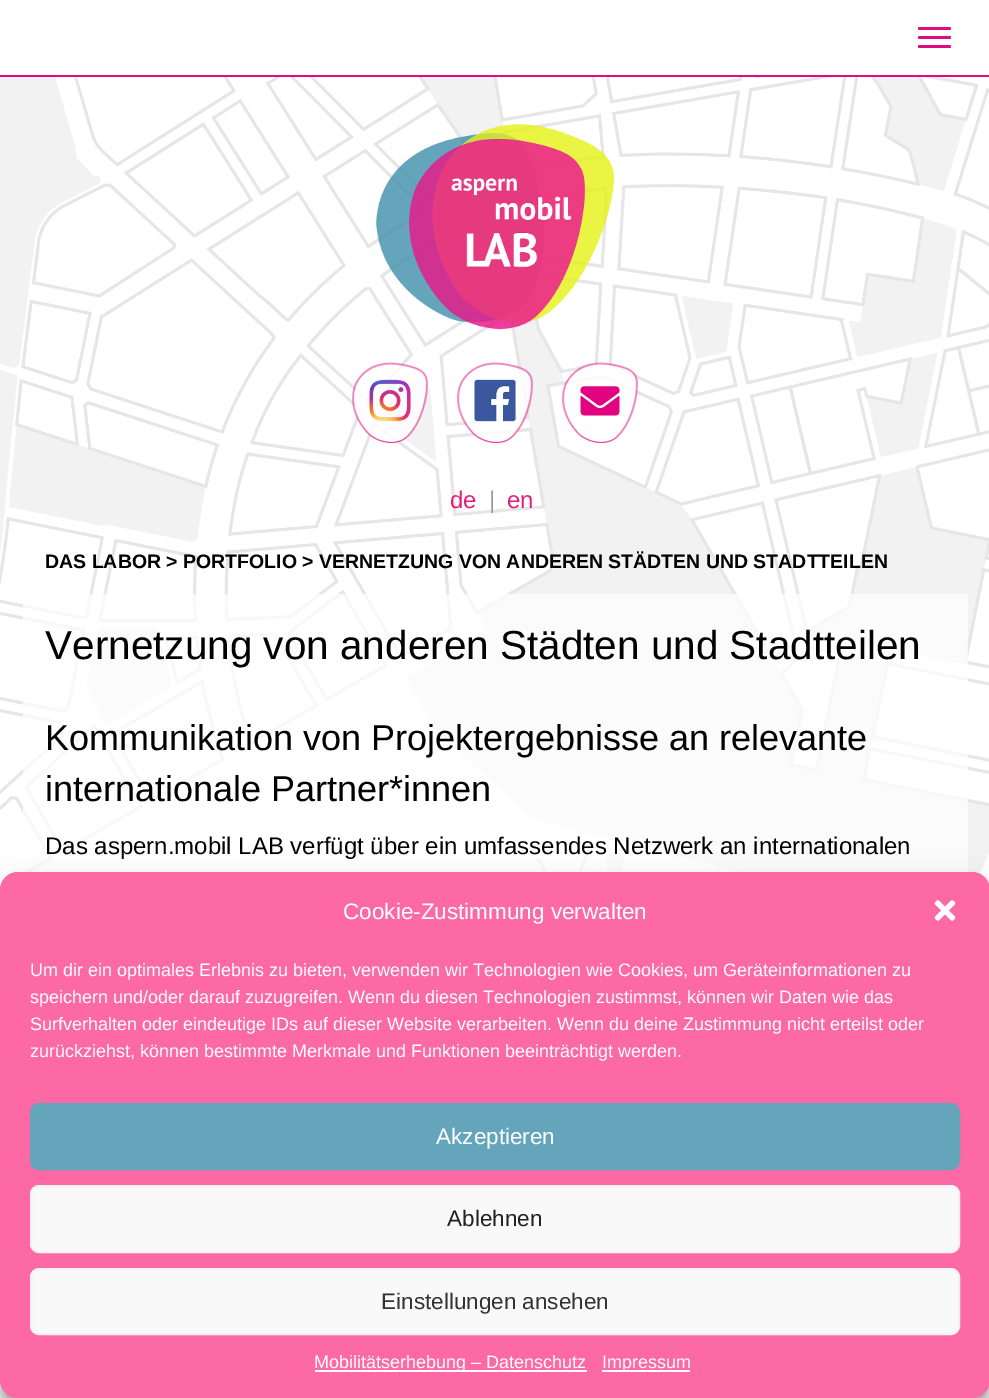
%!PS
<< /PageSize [989 1398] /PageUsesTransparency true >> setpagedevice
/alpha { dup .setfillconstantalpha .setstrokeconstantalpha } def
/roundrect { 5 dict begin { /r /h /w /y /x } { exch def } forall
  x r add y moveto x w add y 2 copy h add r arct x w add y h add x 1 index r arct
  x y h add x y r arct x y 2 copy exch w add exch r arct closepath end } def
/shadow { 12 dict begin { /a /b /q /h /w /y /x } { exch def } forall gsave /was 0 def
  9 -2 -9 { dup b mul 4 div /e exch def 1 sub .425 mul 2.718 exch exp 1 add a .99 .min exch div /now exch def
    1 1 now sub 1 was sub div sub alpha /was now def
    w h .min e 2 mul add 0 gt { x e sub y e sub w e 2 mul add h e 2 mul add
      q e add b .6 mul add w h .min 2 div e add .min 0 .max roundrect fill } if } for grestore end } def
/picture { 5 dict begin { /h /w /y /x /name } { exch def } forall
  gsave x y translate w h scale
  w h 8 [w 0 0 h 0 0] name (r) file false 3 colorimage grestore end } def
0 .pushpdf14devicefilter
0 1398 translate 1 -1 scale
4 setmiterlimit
1 setgray
0 0 989 1398 rectfill
(img1.rgb) 0 77 989 1321 picture
0.882 0.039 0.502 setrgbcolor
0 75 989 2 rectfill
918 27 33 3 1.5 roundrect fill
918 36 33 3 1.5 roundrect fill
918 45 33 3 1.5 roundrect fill
(img2.rgb) 376 124 239 206 picture
(img3.rgb) 352 362 76 82 picture
(img4.rgb) 369 379 42 43 picture
(img5.rgb) 457 362 76 82 picture
(img6.rgb) 474 379 42 43 picture
(img7.rgb) 562 362 76 82 picture
(img8.rgb) 580 386 40 30 picture
/LiberationSans-Regular [24 0 0 -24 0 0] selectfont
0.89 0.11 0.475 setrgbcolor
450 508 moveto (de) show
0.6 setgray
489 508 moveto (|) show
0.89 0.11 0.475 setrgbcolor
507 508 moveto (en) show
/LiberationSans-Bold [19.5 0 0 -19.5 0 0] selectfont
0 setgray
45 568 moveto (DAS LABOR > PORTFOLIO > VERNETZUNG VON ANDEREN STÄDTEN UND STADTTEILEN) show
0.7 alpha
1 setgray
23 594 945 278 rectfill
/LiberationSans-Regular [40.5 0 0 -40.5 0 0] selectfont
1 alpha
0 setgray
45 659 moveto (Vernetzung von anderen Städten und Stadtteilen) show
/LiberationSans-Regular [36 0 0 -36 0 0] selectfont
45 750 moveto (Kommunikation von Projektergebnisse an relevante) show
45 801 moveto (internationale Partner*innen) show
/LiberationSans-Regular [24 0 0 -24 0 0] selectfont
45 854 moveto (Das aspern.mobil LAB verfügt über ein umfassendes Netzwerk an internationalen) show
0 881 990 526 18 4.5 0.23 shadow
0 887 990 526 18 15 0.19 shadow
0.988 0.412 0.647 setrgbcolor
0 872 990 526 18 roundrect fill
/LiberationSans-Regular [22.5 0 0 -22.5 0 0] selectfont
1 setgray
343 919 moveto (Cookie-Zustimmung verwalten) show
(img9.rgb) 934 900 22 21 picture
/LiberationSans-Regular [18 0 0 -18 0 0] selectfont
30 976 moveto (Um dir ein optimales Erlebnis zu bieten, verwenden wir Technologien wie Cookies, um Geräteinformationen zu) show
30 1003 moveto (speichern und/oder darauf zuzugreifen. Wenn du diesen Technologien zustimmst, können wir Daten wie das) show
30 1030 moveto (Surfverhalten oder eindeutige IDs auf dieser Website verarbeiten. Wenn du deine Zustimmung nicht erteilst oder) show
30 1057 moveto (zurückziehst, können bestimmte Merkmale und Funktionen beeinträchtigt werden.) show
0.396 0.647 0.737 setrgbcolor
31 1104 928 65 8 roundrect gsave fill grestore
2 setlinewidth
stroke
/LiberationSans-Regular [22.5 0 0 -22.5 0 0] selectfont
1 setgray
436 1144 moveto (Akzeptieren) show
0.976 setgray
31 1186 928 66 8 roundrect gsave fill grestore
0.949 setgray
stroke
0.133 setgray
447 1226 moveto (Ablehnen) show
0.976 setgray
31 1269 928 65 8 roundrect gsave fill grestore
0.949 setgray
stroke
0.2 setgray
381 1309 moveto (Einstellungen ansehen) show
1 setgray
315 1370 272 2 rectfill
/LiberationSans-Regular [18 0 0 -18 0 0] selectfont
314 1368 moveto (Mobilitätserhebung – Datenschutz) show
602 1370 88 2 rectfill
602 1368 moveto (Impressum) show
.poppdf14devicefilter showpage
